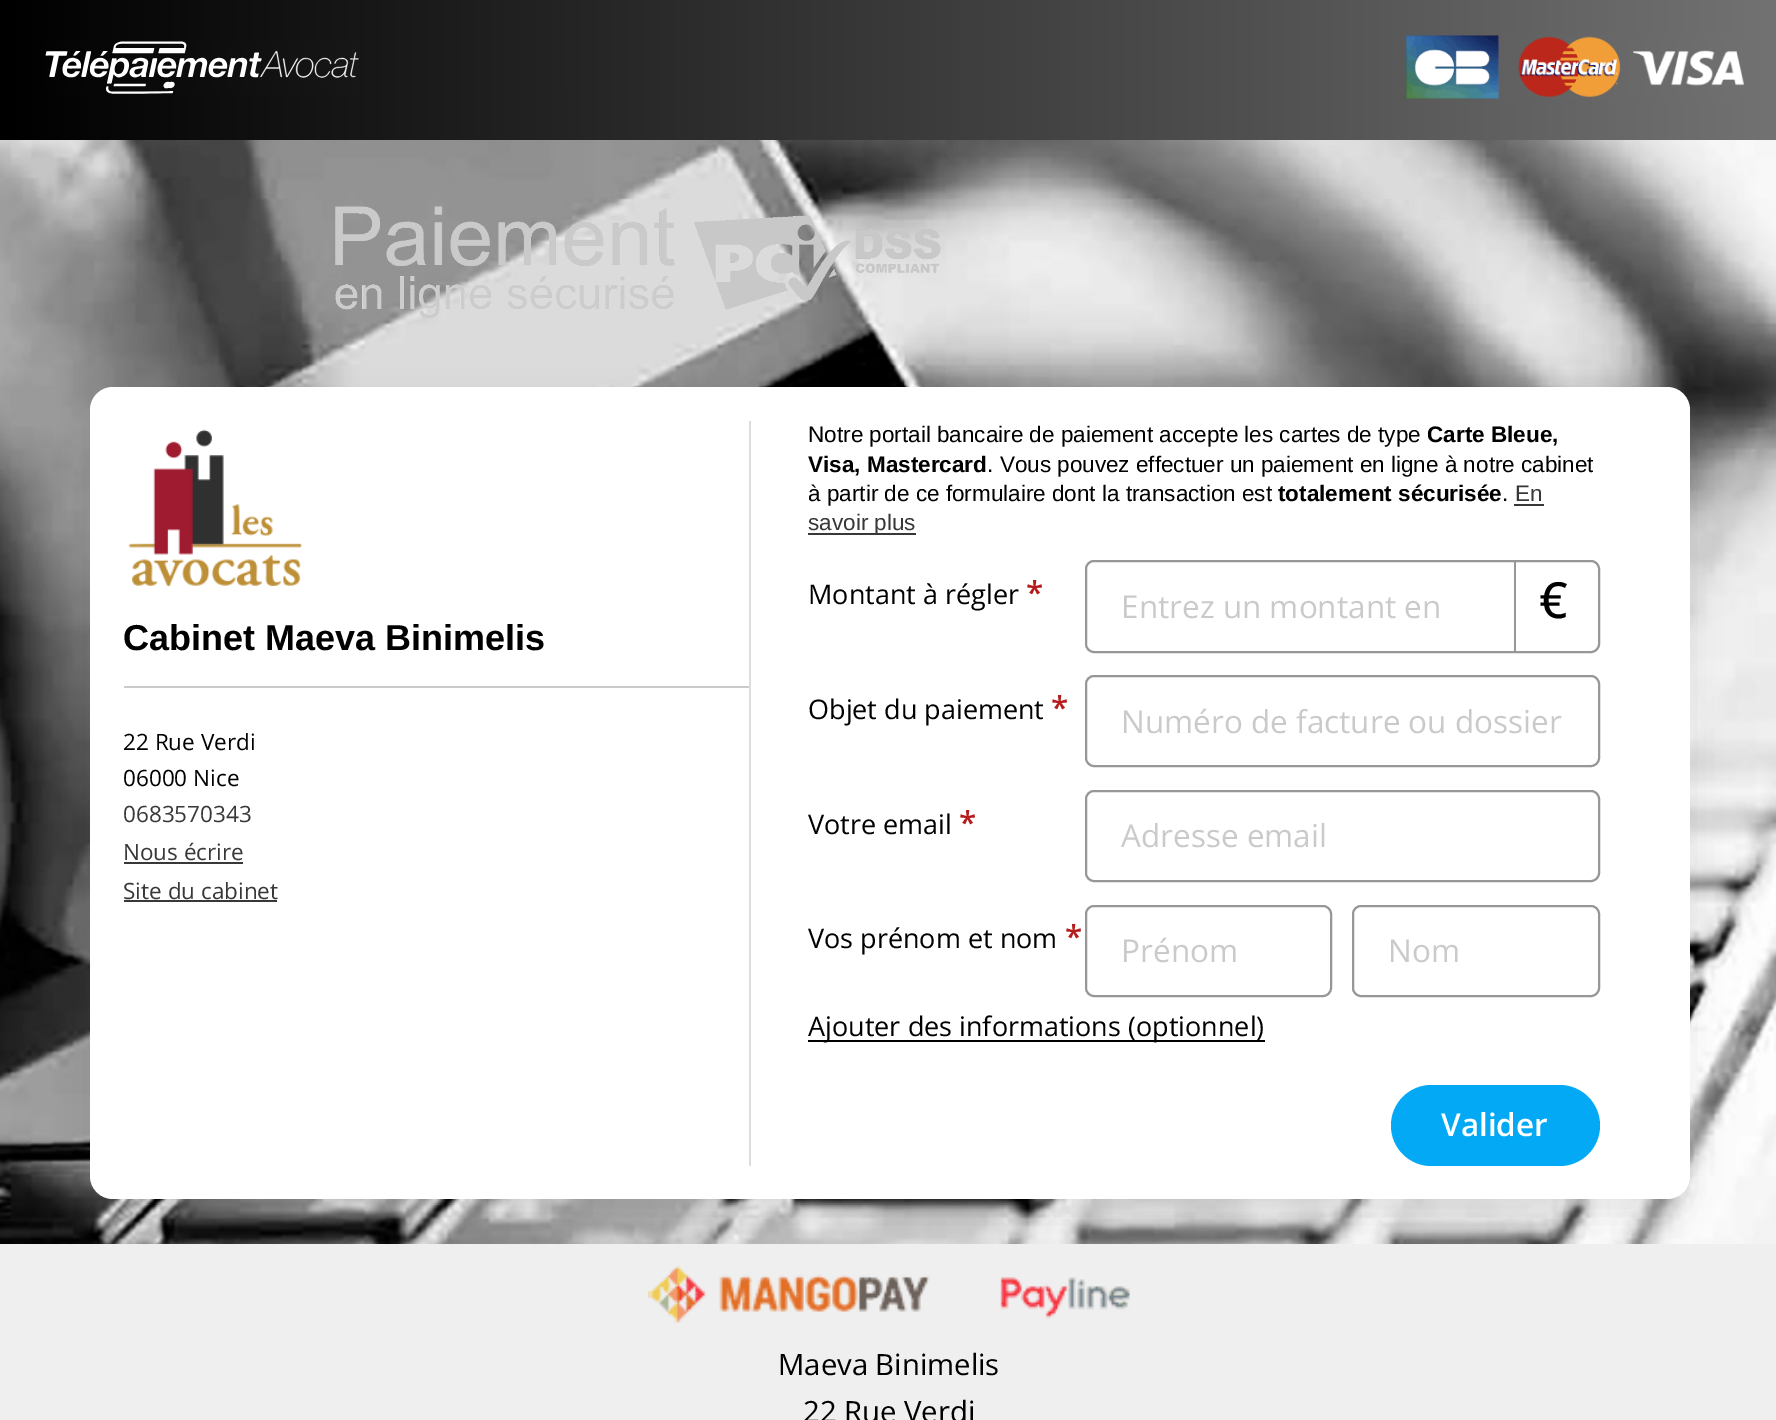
%!PS
<< /PageSize [1776 1420] /PageUsesTransparency true >> setpagedevice
/alpha { dup .setfillconstantalpha .setstrokeconstantalpha } def
/roundrect { 5 dict begin { /r /h /w /y /x } { exch def } forall
  x r add y moveto x w add y 2 copy h add r arct x w add y h add x 1 index r arct
  x y h add x y r arct x y 2 copy exch w add exch r arct closepath end } def
/shadow { 12 dict begin { /a /b /q /h /w /y /x } { exch def } forall gsave /was 0 def
  9 -2 -9 { dup b mul 4 div /e exch def 1 sub .425 mul 2.718 exch exp 1 add a .99 .min exch div /now exch def
    1 1 now sub 1 was sub div sub alpha /was now def
    w h .min e 2 mul add 0 gt { x e sub y e sub w e 2 mul add h e 2 mul add
      q e add b .6 mul add w h .min 2 div e add .min 0 .max roundrect fill } if } for grestore end } def
/picture { 5 dict begin { /h /w /y /x /name } { exch def } forall
  gsave x y translate w h scale
  w h 8 [w 0 0 h 0 0] name (r) file false 3 colorimage grestore end } def
0 .pushpdf14devicefilter
0 1420 translate 1 -1 scale
4 setmiterlimit
1 setgray
0 0 1776 1420 rectfill
gsave newpath 0 0 moveto 1776 0 lineto 1776 140 lineto 0 140 lineto closepath clip newpath
<< /ShadingType 2 /ColorSpace /DeviceRGB /Coords [0 68 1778 67] /Extend [true true] /Function << /FunctionType 2 /Domain [0 1] /C0 [0 0 0] /C1 [0.447 0.447 0.447] /N 1 >> >> shfill grestore
(img1.rgb) 45 41 314 53 picture
(img2.rgb) 1406 35 338 64 picture
(img3.rgb) 0 140 1776 1104 picture
(img4.rgb) 335 206 606 112 picture
0.039 setgray
95 407 1590 806 18 17 0.1 shadow
1 setgray
90 387 1600 812 23 roundrect fill
(img5.rgb) 128 429 174 158 picture
/LiberationSans-Bold [36 0 0 -36 0 0] selectfont
0 setgray
123 650 moveto (Cabinet Maeva Binimelis) show
0.792 setgray
124 686 625 2 rectfill
/OpenSans-Regular [22.5 0 0 -22.5 0 0] selectfont
0 setgray
123 750 moveto (22 Rue Verdi) show
123 786 moveto (06000 Nice) show
0.22 setgray
123 822 moveto (0683570343) show
123 860 moveto (Nous écrire) show
124 862 119 2 rectfill
123 899 moveto (Site du cabinet) show
124 900 153 2 rectfill
0.867 setgray
749 421 2 745 rectfill
/LiberationSans-Regular [22.5 0 0 -22.5 0 0] selectfont
0 setgray
808 442 moveto (Notre portail bancaire de paiement accepte les cartes de type) show
/LiberationSans-Bold [22.5 0 0 -22.5 0 0] selectfont
1427 442 moveto (Carte Bleue,) show
808 472 moveto (Visa, Mastercard) show
/LiberationSans-Regular [22.5 0 0 -22.5 0 0] selectfont
987 472 moveto (. Vous pouvez effectuer un paiement en ligne à notre cabinet) show
808 501 moveto (à partir de ce formulaire dont la transaction est) show
/LiberationSans-Bold [22.5 0 0 -22.5 0 0] selectfont
1278 501 moveto (totalement sécurisée) show
/LiberationSans-Regular [22.5 0 0 -22.5 0 0] selectfont
1502 501 moveto (.) show
0.22 setgray
1515 501 moveto (En) show
1514 504 30 2 rectfill
808 533 108 2 rectfill
808 530 moveto (savoir plus) show
/OpenSans-Regular [27 0 0 -27 0 0] selectfont
0 setgray
808 604 moveto (Montant à régler) show
/OpenSans-SemiBold [31.5 0 0 -31.5 0 0] selectfont
0.718 0.11 0.11 setrgbcolor
1026 604 moveto (*) show
0.592 setgray
2 setlinewidth
1086 561 513 91 8 roundrect stroke
/OpenSans-Regular [31.5 0 0 -31.5 0 0] selectfont
0.792 setgray
1121 618 moveto (Entrez un montant en) show
0.592 setgray
1514 560 2 93 rectfill
/OpenSans-Medium [50 0 0 -50 0 0] selectfont
0 setgray
1539 618 moveto (€) show
/OpenSans-Regular [27 0 0 -27 0 0] selectfont
808 719 moveto (Objet du paiement) show
/OpenSans-SemiBold [31.5 0 0 -31.5 0 0] selectfont
0.718 0.11 0.11 setrgbcolor
1051 719 moveto (*) show
0.592 setgray
1086 676 513 90 8 roundrect stroke
/OpenSans-Regular [31.5 0 0 -31.5 0 0] selectfont
0.792 setgray
1121 733 moveto (Numéro de facture ou dossier) show
/OpenSans-Regular [27 0 0 -27 0 0] selectfont
0 setgray
808 834 moveto (Votre email) show
/OpenSans-SemiBold [31.5 0 0 -31.5 0 0] selectfont
0.718 0.11 0.11 setrgbcolor
959 834 moveto (*) show
0.592 setgray
1086 791 513 90 8 roundrect stroke
/OpenSans-Regular [31.5 0 0 -31.5 0 0] selectfont
0.792 setgray
1121 847 moveto (Adresse email) show
/OpenSans-Regular [27 0 0 -27 0 0] selectfont
0 setgray
808 948 moveto (Vos prénom et nom) show
/OpenSans-SemiBold [31.5 0 0 -31.5 0 0] selectfont
0.718 0.11 0.11 setrgbcolor
1065 948 moveto (*) show
0.592 setgray
1086 906 245 90 8 roundrect stroke
/OpenSans-Regular [31.5 0 0 -31.5 0 0] selectfont
0.792 setgray
1121 962 moveto (Prénom) show
0.592 setgray
1353 906 246 90 8 roundrect stroke
0.792 setgray
1388 962 moveto (Nom) show
0 setgray
808 1040 457 2 rectfill
/OpenSans-Regular [27 0 0 -27 0 0] selectfont
808 1036 moveto (Ajouter des informations \(optionnel\)) show
0.012 0.663 0.957 setrgbcolor
1391 1085 209 81 40.5 roundrect fill
/OpenSans-SemiBold [31.5 0 0 -31.5 0 0] selectfont
1 setgray
1441 1136 moveto (Valider) show
0.937 setgray
0 1244 1776 176 rectfill
(img6.rgb) 648 1266 482 57 picture
/OpenSans-Regular [29.25 0 0 -29.25 0 0] selectfont
0 setgray
778 1375 moveto (Maeva Binimelis) show
803 1422 moveto (22 Rue Verdi) show
.poppdf14devicefilter showpage
